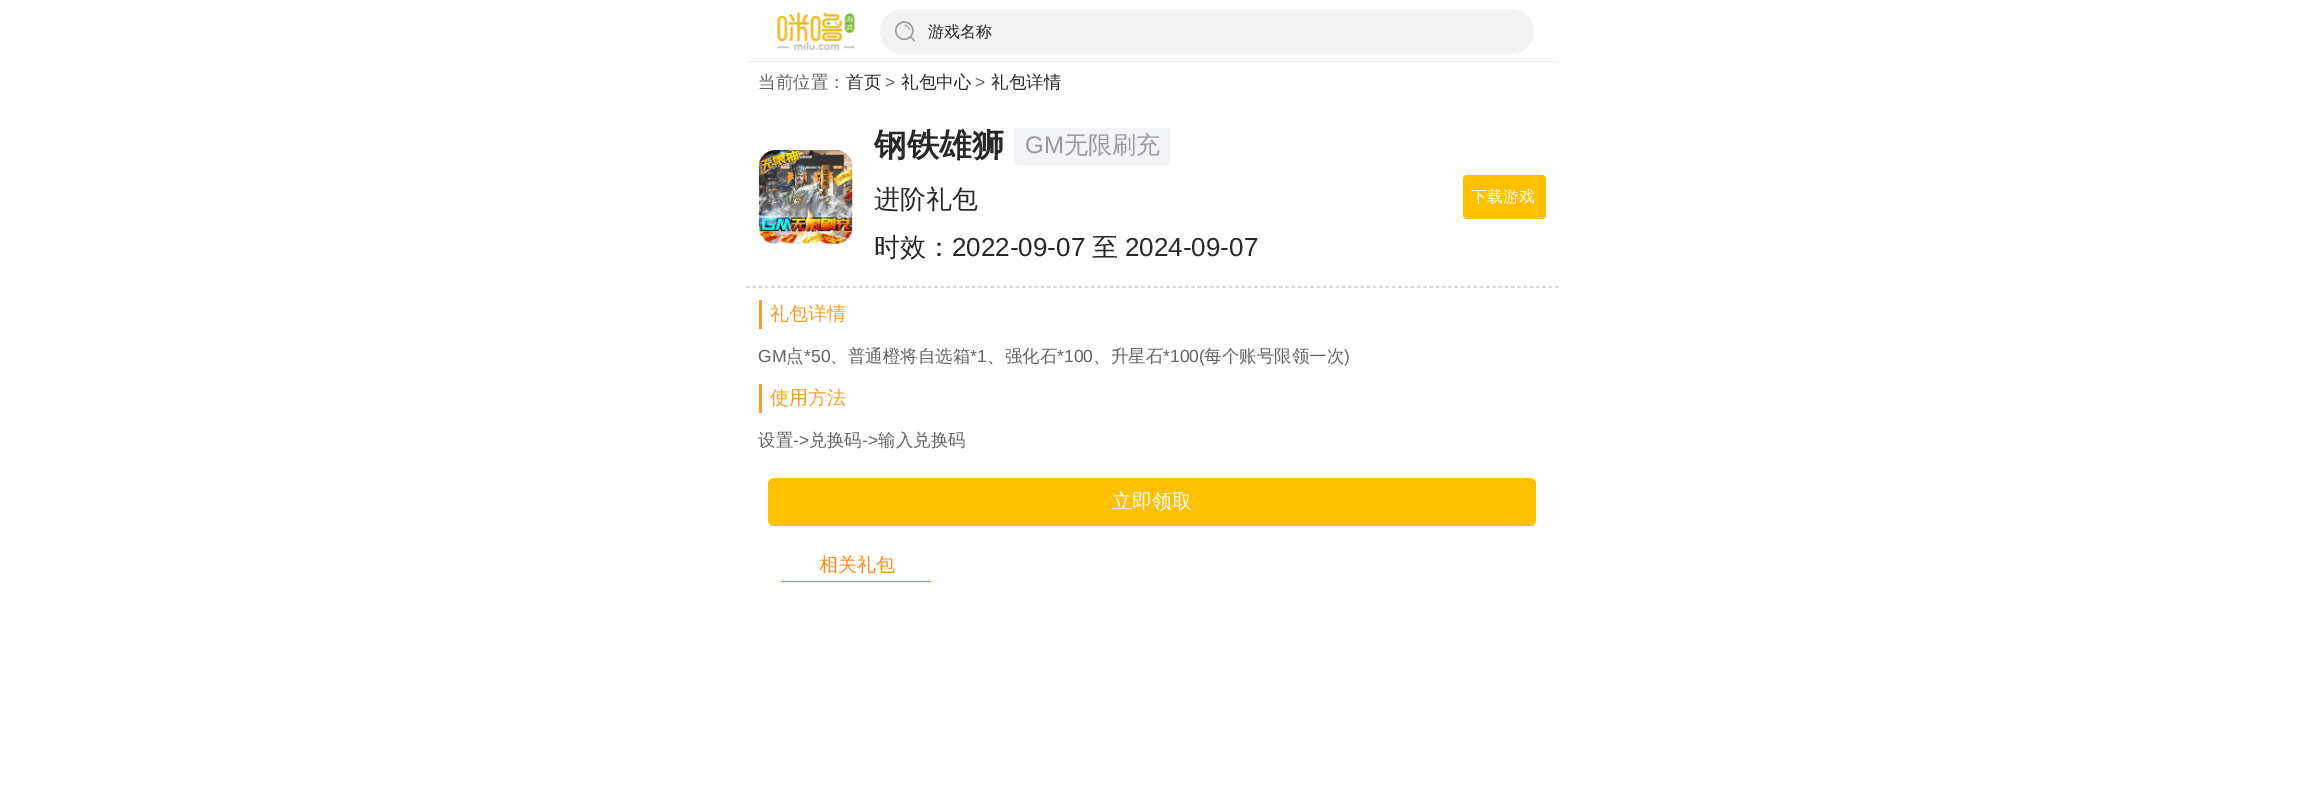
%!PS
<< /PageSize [2303 792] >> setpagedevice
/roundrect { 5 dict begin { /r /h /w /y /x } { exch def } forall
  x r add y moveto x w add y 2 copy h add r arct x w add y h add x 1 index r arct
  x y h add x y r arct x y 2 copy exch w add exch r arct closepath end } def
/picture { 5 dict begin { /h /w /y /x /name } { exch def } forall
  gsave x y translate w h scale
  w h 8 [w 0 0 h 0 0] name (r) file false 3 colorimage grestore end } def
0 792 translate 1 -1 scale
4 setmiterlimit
1 setgray
0 0 2303 792 rectfill
(img1.rgb) 777 12 78 38 picture
0.949 setgray
880 9 654 45 22.5 roundrect fill
(img2.rgb) 895 21 20 21 picture
/WenQuanYiZenHei-Medium [16 0 0 -16 0 0] selectfont
0.157 setgray
928 37 moveto (游戏名称) show
0.929 setgray
746 61 813 1 rectfill
/WenQuanYiZenHei-Medium [17.5 0 0 -17.5 0 0] selectfont
0.392 setgray
758 88 moveto (当前位置：) show
0.157 setgray
846 88 moveto (首页) show
/LiberationSans-Regular [17.5 0 0 -17.5 0 0] selectfont
0.392 setgray
885 88 moveto (>) show
/WenQuanYiZenHei-Medium [17.5 0 0 -17.5 0 0] selectfont
0.157 setgray
901 88 moveto (礼包中心) show
/LiberationSans-Regular [17.5 0 0 -17.5 0 0] selectfont
0.392 setgray
975 88 moveto (>) show
/WenQuanYiZenHei-Medium [17.5 0 0 -17.5 0 0] selectfont
0.157 setgray
991 88 moveto (礼包详情) show
0.8 setgray
1.2 setlinewidth
[3.75 2.52] 0 setdash
newpath 746 287 moveto 1559 287 lineto stroke
(img3.rgb) 758 150 95 94 picture
/WenQuanYiZenHei-Bold [32.5 0 0 -32.5 0 0] selectfont
0.157 setgray
874 156 moveto (钢铁雄狮) show
0.953 0.957 0.973 setrgbcolor
1014 128 156 37 rectfill
/LiberationSans-Regular [24 0 0 -24 0 0] selectfont
0.6 setgray
1025 153 moveto (GM) show
/WenQuanYiZenHei-Medium [24 0 0 -24 0 0] selectfont
1064 153 moveto (无限刷充) show
/WenQuanYiZenHei-Medium [26 0 0 -26 0 0] selectfont
0.157 setgray
874 208 moveto (进阶礼包) show
874 256 moveto (时效：) show
/LiberationSans-Regular [26 0 0 -26 0 0] selectfont
952 256 moveto (2022-09-07) show
/WenQuanYiZenHei-Medium [26 0 0 -26 0 0] selectfont
1092 256 moveto (至) show
/LiberationSans-Regular [26 0 0 -26 0 0] selectfont
1125 256 moveto (2024-09-07) show
1 0.753 0 setrgbcolor
1463 175 83 44 4 roundrect fill
/WenQuanYiZenHei-Medium [16 0 0 -16 0 0] selectfont
1 setgray
1471 202 moveto (下载游戏) show
1 0.608 0.141 setrgbcolor
759 300 3 29 rectfill
/WenQuanYiZenHei-Medium [19 0 0 -19 0 0] selectfont
770 320 moveto (礼包详情) show
/LiberationSans-Regular [17.5 0 0 -17.5 0 0] selectfont
0.392 setgray
758 362 moveto (GM) show
/WenQuanYiZenHei-Medium [17.5 0 0 -17.5 0 0] selectfont
786 362 moveto (点) show
/LiberationSans-Regular [17.5 0 0 -17.5 0 0] selectfont
804 362 moveto (*50) show
/WenQuanYiZenHei-Medium [17.5 0 0 -17.5 0 0] selectfont
830 362 moveto (、普通橙将自选箱) show
/LiberationSans-Regular [17.5 0 0 -17.5 0 0] selectfont
970 362 moveto (*1) show
/WenQuanYiZenHei-Medium [17.5 0 0 -17.5 0 0] selectfont
987 362 moveto (、强化石) show
/LiberationSans-Regular [17.5 0 0 -17.5 0 0] selectfont
1057 362 moveto (*100) show
/WenQuanYiZenHei-Medium [17.5 0 0 -17.5 0 0] selectfont
1093 362 moveto (、升星石) show
/LiberationSans-Regular [17.5 0 0 -17.5 0 0] selectfont
1163 362 moveto (*100\() show
/WenQuanYiZenHei-Medium [17.5 0 0 -17.5 0 0] selectfont
1204 362 moveto (每个账号限领一次) show
/LiberationSans-Regular [17.5 0 0 -17.5 0 0] selectfont
1344 362 moveto (\)) show
1 0.608 0.141 setrgbcolor
759 384 3 29 rectfill
/WenQuanYiZenHei-Medium [19 0 0 -19 0 0] selectfont
770 404 moveto (使用方法) show
/WenQuanYiZenHei-Medium [17.5 0 0 -17.5 0 0] selectfont
0.392 setgray
758 446 moveto (设置) show
/LiberationSans-Regular [17.5 0 0 -17.5 0 0] selectfont
793 446 moveto (->) show
/WenQuanYiZenHei-Medium [17.5 0 0 -17.5 0 0] selectfont
809 446 moveto (兑换码) show
/LiberationSans-Regular [17.5 0 0 -17.5 0 0] selectfont
862 446 moveto (->) show
/WenQuanYiZenHei-Medium [17.5 0 0 -17.5 0 0] selectfont
878 446 moveto (输入兑换码) show
1 0.753 0 setrgbcolor
768 478 768 48 6 roundrect fill
/WenQuanYiZenHei-Medium [20 0 0 -20 0 0] selectfont
1 setgray
1112 508 moveto (立即领取) show
0.996 0.541 0.102 setrgbcolor
781 581 150 1 rectfill
/WenQuanYiZenHei-Medium [19 0 0 -19 0 0] selectfont
819 571 moveto (相关礼包) show
showpage
